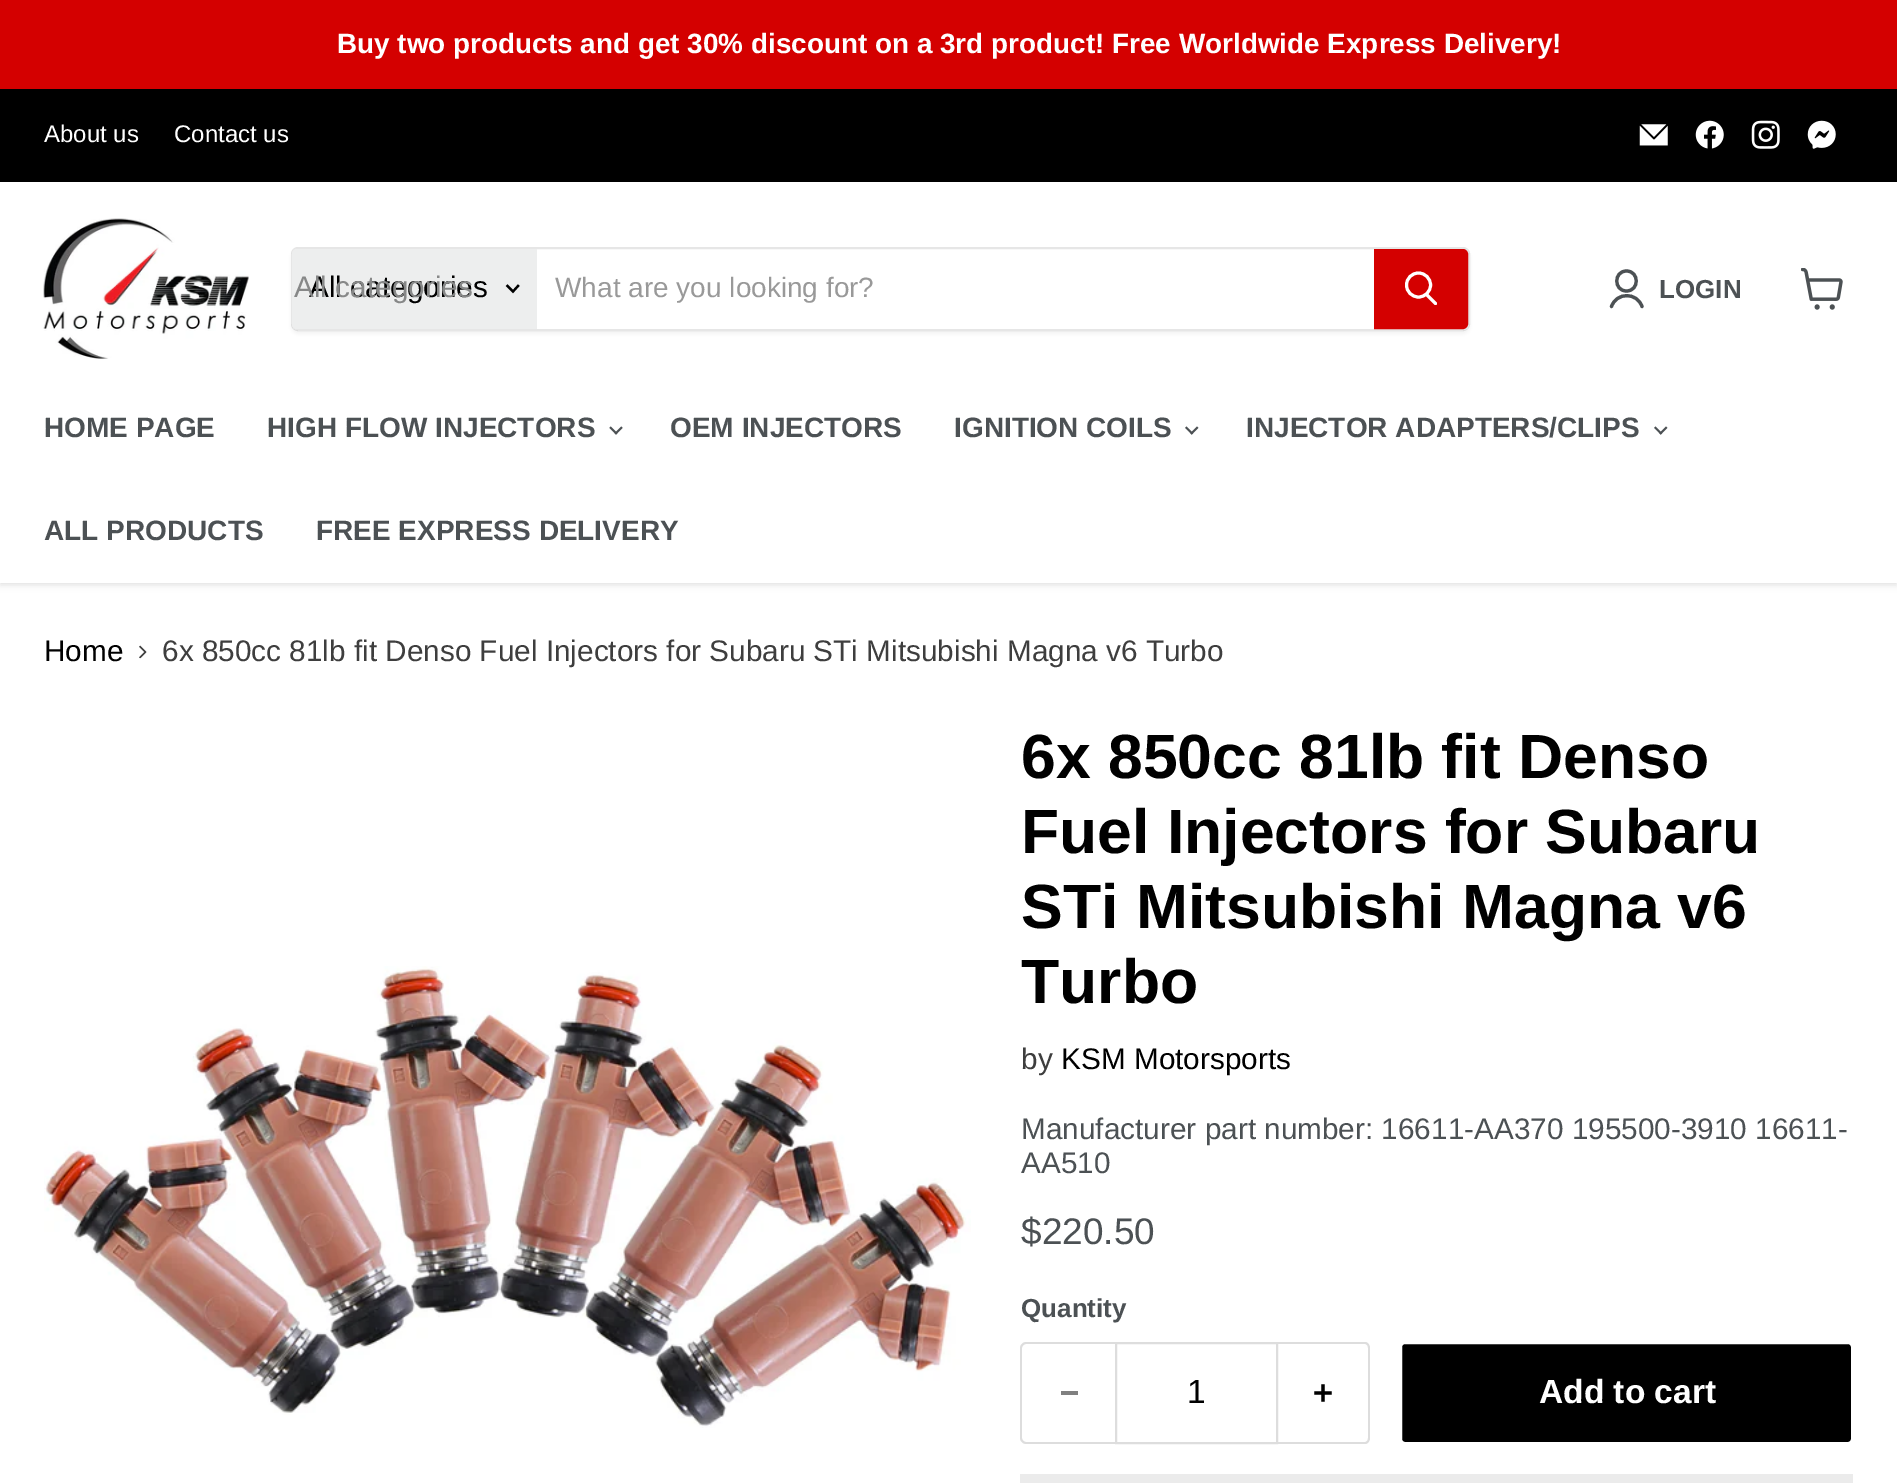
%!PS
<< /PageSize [1897 1483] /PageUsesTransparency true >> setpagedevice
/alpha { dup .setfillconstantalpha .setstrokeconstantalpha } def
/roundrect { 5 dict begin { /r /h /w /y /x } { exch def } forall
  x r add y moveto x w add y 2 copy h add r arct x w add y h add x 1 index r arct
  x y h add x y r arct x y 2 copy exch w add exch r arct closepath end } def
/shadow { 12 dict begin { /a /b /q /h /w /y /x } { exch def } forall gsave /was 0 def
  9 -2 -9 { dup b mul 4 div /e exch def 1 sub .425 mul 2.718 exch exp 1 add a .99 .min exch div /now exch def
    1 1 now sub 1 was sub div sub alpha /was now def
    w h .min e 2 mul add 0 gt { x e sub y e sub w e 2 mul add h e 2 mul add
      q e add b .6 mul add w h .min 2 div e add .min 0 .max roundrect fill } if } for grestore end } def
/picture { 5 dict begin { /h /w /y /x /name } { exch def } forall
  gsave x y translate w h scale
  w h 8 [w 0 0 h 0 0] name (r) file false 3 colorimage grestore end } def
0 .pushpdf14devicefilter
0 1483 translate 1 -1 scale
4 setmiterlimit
1 setgray
0 0 1897 1483 rectfill
0.831 0 0 setrgbcolor
0 0 1897 89 rectfill
/LiberationSans-Bold [27.9 0 0 -27.9 0 0] selectfont
1 setgray
337 53 moveto (Buy two products and get 30% discount on a 3rd product! Free Worldwide Express Delivery!) show
0.502 setgray
0 186 1897 399 0 3.5 0.25 shadow
0 setgray
0 89 1897 93 rectfill
/LiberationSans-Regular [24 0 0 -24 0 0] selectfont
1 setgray
44 142 moveto (About us) show
174 142 moveto (Contact us) show
(img1.rgb) 1639 124 29 22 picture
(img2.rgb) 1695 120 29 29 picture
(img3.rgb) 1751 120 29 29 picture
(img4.rgb) 1807 120 29 29 picture
0 182 1897 401 rectfill
(img5.rgb) 43 218 206 141 picture
gsave
newpath 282 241 moveto 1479 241 lineto 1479 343 lineto 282 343 lineto closepath 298 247 moveto 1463 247 lineto 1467 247 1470 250 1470 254 curveto 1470 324 lineto 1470 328 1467 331 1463 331 curveto 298 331 lineto 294 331 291 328 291 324 curveto 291 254 lineto 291 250 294 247 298 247 curveto closepath eoclip newpath
0.502 setgray
291 250 1179 84 7 2.5 0.11 shadow
grestore
0.2 alpha
0.502 setgray
2 setlinewidth
292 248 1177 82 6 roundrect stroke
1 alpha
0.929 0.933 0.933 setrgbcolor
newpath 297 249 moveto 537 249 lineto 537 329 lineto 297 329 lineto 294 329 292 327 292 324 curveto 292 254 lineto 292 251 294 249 297 249 curveto closepath fill
/LiberationSans-Regular [29.75 0 0 -29.75 0 0] selectfont
0 setgray
309 297 moveto (All categories) show
0.529 0.533 0.533 setrgbcolor
294 297 moveto (All categories) show
0 setgray
2.2 setlinewidth
2 setlinecap
newpath 513 291.5 moveto 518 286 lineto 513 291.5 moveto 507.5 286 lineto stroke
/LiberationSans-Regular [28 0 0 -28 0 0] selectfont
0.6 setgray
555 297 moveto (What are you looking for?) show
0.831 0 0 setrgbcolor
newpath 1375 250 moveto 1463 250 lineto 1465 250 1467 252 1467 254 curveto 1467 324 lineto 1467 326 1465 328 1463 328 curveto 1375 328 lineto closepath gsave fill grestore
2 setlinewidth
0 setlinecap
stroke
1 setgray
3 setlinewidth
1 setlinecap
newpath 1435.5 303.5 moveto 1427 295 lineto stroke
0 setlinecap
newpath 1418.5 285 12 0 360 arc closepath stroke
0.298 0.318 0.329 setrgbcolor
3.2 setlinewidth
1 setlinecap
1 setlinejoin
newpath 1626.5 291 moveto 1639.5 291 1639.5 271 1626.5 271 curveto 1613.5 271 1613.5 291 1626.5 291 curveto closepath 1642 306.5 moveto 1637 292 1616.5 292 1611.5 306.5 curveto stroke
/LiberationSans-Bold [26 0 0 -26 0 0] selectfont
1659 298 moveto (LOGIN) show
(img6.rgb) 1801 268 42 42 picture
/LiberationSans-Bold [28 0 0 -28 0 0] selectfont
44 437 moveto (HOME PAGE) show
267 437 moveto (HIGH FLOW INJECTORS) show
(img7.rgb) 609 426 14 9 picture
670 437 moveto (OEM INJECTORS) show
954 437 moveto (IGNITION COILS) show
(img8.rgb) 1185 426 14 9 picture
1246 437 moveto (INJECTOR ADAPTERS/CLIPS) show
(img8.rgb) 1654 426 14 9 picture
44 540 moveto (ALL PRODUCTS) show
316 540 moveto (FREE EXPRESS DELIVERY) show
/LiberationSans-Regular [29.75 0 0 -29.75 0 0] selectfont
0 setgray
44 661 moveto (Home) show
(img9.rgb) 139 645 8 14 picture
0.243 setgray
162 661 moveto (6x 850cc 81lb fit Denso Fuel Injectors for Subaru STi Mitsubishi Magna v6 Turbo) show
(img10.rgb) 44 966 927 462 picture
/LiberationSans-Bold [62.5 0 0 -62.5 0 0] selectfont
0 setgray
1021 778 moveto (6x 850cc 81lb fit Denso) show
1021 853 moveto (Fuel Injectors for Subaru) show
1021 928 moveto (STi Mitsubishi Magna v6) show
1021 1003 moveto (Turbo) show
/LiberationSans-Regular [29.75 0 0 -29.75 0 0] selectfont
0.243 setgray
1021 1069 moveto (by) show
0 setgray
1061 1069 moveto (KSM Motorsports) show
0.298 0.318 0.329 setrgbcolor
1021 1139 moveto (Manufacturer part number: 16611-AA370 195500-3910 16611-) show
1021 1173 moveto (AA510) show
/LiberationSans-Regular [37 0 0 -37 0 0] selectfont
1021 1244 moveto ($220.50) show
/LiberationSans-Bold [26 0 0 -26 0 0] selectfont
1021 1317 moveto (Quantity) show
0.867 setgray
newpath 1026 1342 moveto 1115 1342 lineto 1115 1444 lineto 1026 1444 lineto 1023 1444 1020 1441 1020 1438 curveto 1020 1348 lineto 1020 1345 1023 1342 1026 1342 curveto closepath 1026 1344 moveto 1115 1344 lineto 1115 1442 lineto 1026 1442 lineto 1024 1442 1022 1440 1022 1438 curveto 1022 1348 lineto 1022 1346 1024 1344 1026 1344 curveto closepath eofill
0.502 setgray
1061 1391 17 4 rectfill
0.867 setgray
2 setlinewidth
0 setlinecap
0 setlinejoin
1116 1343 161 100 rectstroke
/LiberationSans-Regular [33.5 0 0 -33.5 0 0] selectfont
0 setgray
1187 1403 moveto (1) show
0.867 setgray
newpath 1278 1342 moveto 1365 1342 lineto 1368 1342 1370 1345 1370 1348 curveto 1370 1438 lineto 1370 1441 1368 1444 1365 1444 curveto 1278 1444 lineto closepath 1278 1344 moveto 1365 1344 lineto 1367 1344 1368 1346 1368 1348 curveto 1368 1438 lineto 1368 1440 1367 1442 1365 1442 curveto 1278 1442 lineto closepath eofill
(img11.rgb) 1314 1384 18 18 picture
0 setgray
1401 1343 451 100 4 roundrect gsave fill grestore
1 setgray
stroke
/LiberationSans-Bold [33.5 0 0 -33.5 0 0] selectfont
1539 1403 moveto (Add to cart) show
0.922 setgray
1020 1474 833 9 rectfill
.poppdf14devicefilter showpage
